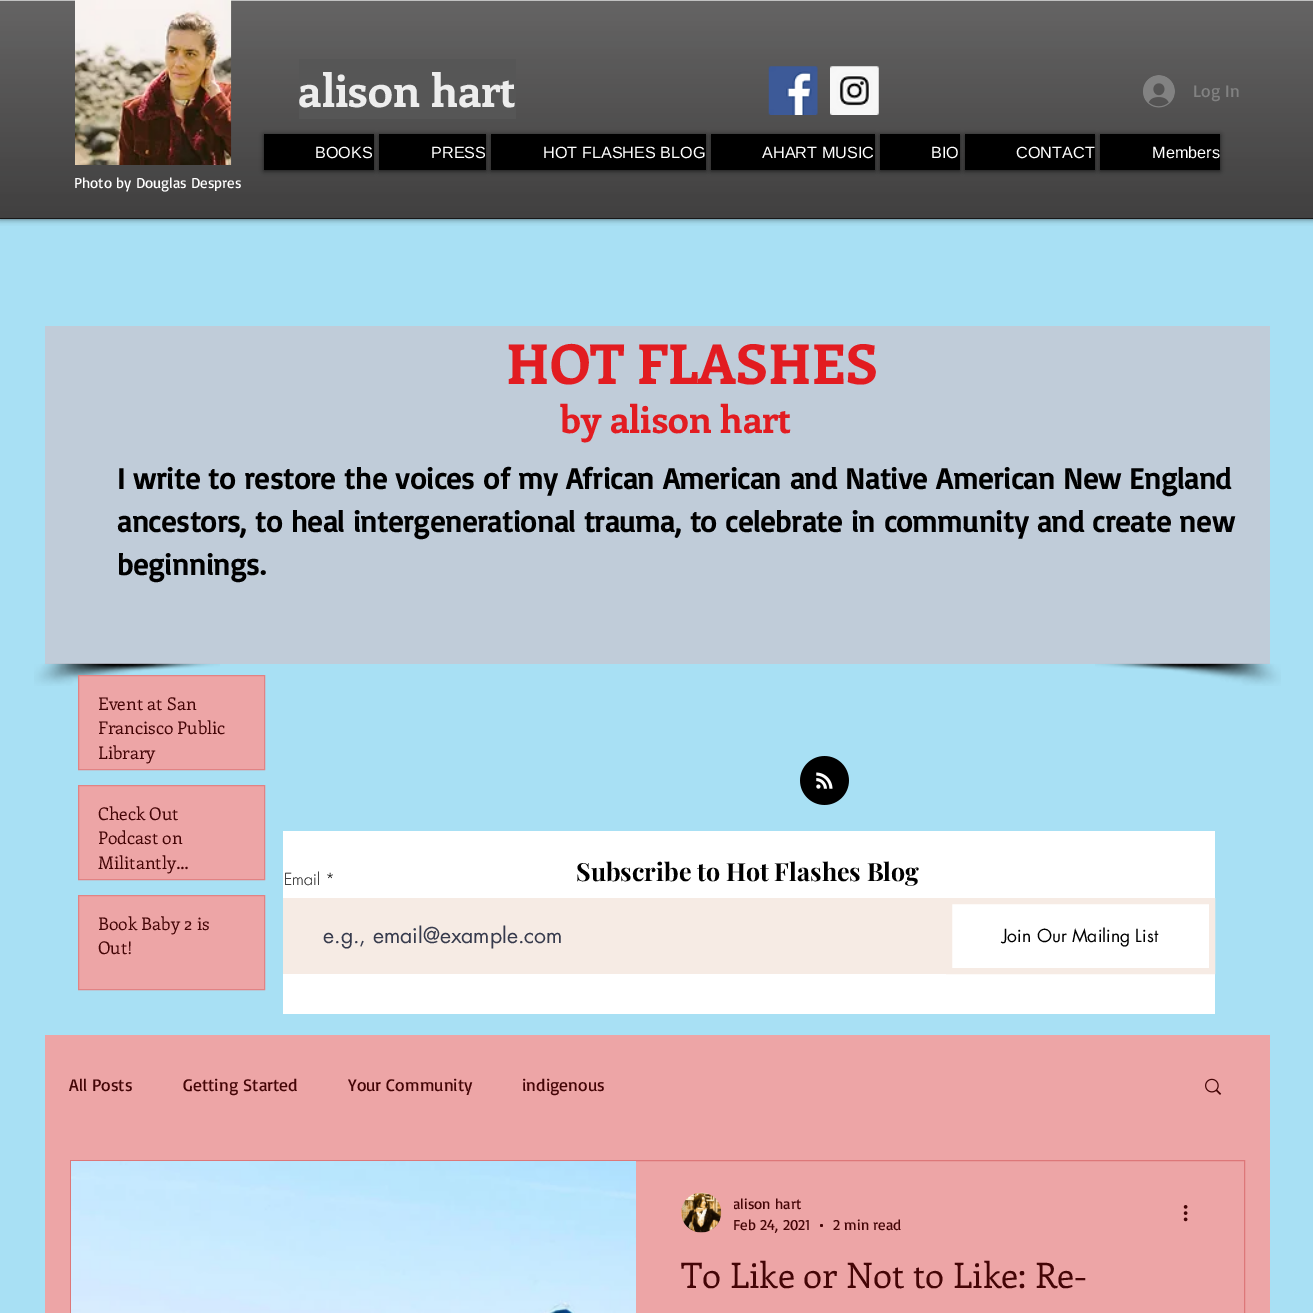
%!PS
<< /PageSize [1313 1313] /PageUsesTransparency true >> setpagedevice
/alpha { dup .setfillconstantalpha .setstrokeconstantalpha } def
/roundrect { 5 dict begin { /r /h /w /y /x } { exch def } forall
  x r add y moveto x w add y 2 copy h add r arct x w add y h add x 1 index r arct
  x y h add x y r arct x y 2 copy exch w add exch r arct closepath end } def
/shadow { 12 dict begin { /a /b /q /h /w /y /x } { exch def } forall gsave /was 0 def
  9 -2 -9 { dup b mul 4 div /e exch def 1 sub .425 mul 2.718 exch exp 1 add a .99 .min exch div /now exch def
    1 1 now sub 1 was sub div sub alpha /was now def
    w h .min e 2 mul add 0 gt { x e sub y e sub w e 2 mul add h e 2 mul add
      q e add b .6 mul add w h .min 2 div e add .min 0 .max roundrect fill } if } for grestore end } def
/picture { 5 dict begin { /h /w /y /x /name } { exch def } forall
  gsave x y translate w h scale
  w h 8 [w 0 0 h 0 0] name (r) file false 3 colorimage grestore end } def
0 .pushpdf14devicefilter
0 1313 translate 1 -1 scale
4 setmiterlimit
0.659 0.878 0.957 setrgbcolor
0 0 1313 1313 rectfill
0 setgray
0 0 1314 219 0 3 0.6 shadow
0.184 0.18 0.18 setrgbcolor
0 1 1313 217 rectfill
(img1.rgb) 0 1 1313 217 picture
0.094 0.09 0.09 setrgbcolor
0 218 1313 1 rectfill
0.757 setgray
0 0 1313 1 rectfill
(img2.rgb) 75 0 157 165 picture
0.337 setgray
299 59 217 60 rectfill
/Enriqueta-Bold [45 0 0 -45 0 0] selectfont
0.929 setgray
298 107 moveto (alison hart) show
(img3.rgb) 768 66 50 49 picture
(img4.rgb) 830 66 49 49 picture
0 setgray
264 135 110 36 0 2.5 0.6 shadow
264 134 110 36 rectfill
/LiberationSans-Regular [16.25 0 0 -16.25 0 0] selectfont
1 setgray
315 158 moveto (BOOKS) show
0 setgray
379 135 107 36 0 2.5 0.6 shadow
379 134 107 36 rectfill
1 setgray
431 158 moveto (PRESS) show
0 setgray
491 135 215 36 0 2.5 0.6 shadow
491 134 215 36 rectfill
1 setgray
543 158 moveto (HOT FLASHES BLOG) show
0 setgray
711 135 164 36 0 2.5 0.6 shadow
711 134 164 36 rectfill
1 setgray
762 158 moveto (AHART MUSIC) show
0 setgray
880 135 80 36 0 2.5 0.6 shadow
880 134 80 36 rectfill
1 setgray
931 158 moveto (BIO) show
0 setgray
965 135 130 36 0 2.5 0.6 shadow
965 134 130 36 rectfill
1 setgray
1016 158 moveto (CONTACT) show
0 setgray
1100 135 120 36 0 2.5 0.6 shadow
1100 134 120 36 rectfill
1 setgray
1152 158 moveto (Members) show
/Basic-Regular [15 0 0 -15 0 0] selectfont
74 188 moveto (Photo by Douglas Despres) show
(img5.rgb) 1143 75 32 33 picture
/Basic-Regular [17.5 0 0 -17.5 0 0] selectfont
0.51 setgray
1193 97 moveto (Log In) show
(img6.rgb) 34 663 186 23 picture
(img7.rgb) 1095 663 186 23 picture
0.34 alpha
0.929 0.647 0.651 setrgbcolor
45 326 1225 338 rectfill
/Enriqueta-Bold [55 0 0 -55 0 0] selectfont
1 alpha
0.886 0.11 0.129 setrgbcolor
506 384 moveto (HOT FLASHES) show
/Enriqueta-Bold [37.5 0 0 -37.5 0 0] selectfont
560 433 moveto (by alison hart) show
/Basic-Bold [30 0 0 -30 0 0] selectfont
0 setgray
117 489 moveto (I write to restore the voices of my African American and Native American New England) show
117 532 moveto (ancestors, to heal intergenerational trauma, to celebrate in community and create new) show
117 575 moveto (beginnings.) show
0.929 0.647 0.651 setrgbcolor
newpath 78.5 675.5 moveto 264.5 675.5 lineto 264.5 769.5 lineto 78.5 769.5 lineto closepath gsave fill grestore
0.882 0.514 0.518 setrgbcolor
stroke
/Enriqueta-Regular [17.5 0 0 -17.5 0 0] selectfont
0.267 0.02 0.024 setrgbcolor
98 710 moveto (Event at San) show
98 734 moveto (Francisco Public) show
98 759 moveto (Library) show
0.929 0.647 0.651 setrgbcolor
newpath 78.5 785.5 moveto 264.5 785.5 lineto 264.5 879.5 lineto 78.5 879.5 lineto closepath gsave fill grestore
0.882 0.514 0.518 setrgbcolor
stroke
0.267 0.02 0.024 setrgbcolor
98 820 moveto (Check Out) show
98 844 moveto (Podcast on) show
98 869 moveto (Militantly…) show
0.929 0.647 0.651 setrgbcolor
newpath 78.5 895.5 moveto 264.5 895.5 lineto 264.5 989.5 lineto 78.5 989.5 lineto closepath gsave fill grestore
0.882 0.514 0.518 setrgbcolor
stroke
0.267 0.02 0.024 setrgbcolor
98 930 moveto (Book Baby 2 is) show
98 954 moveto (Out!) show
(img8.rgb) 800 756 49 49 picture
1 setgray
283 831 932 183 rectfill
/futura-Light [16.25 0 0 -16.25 0 0] selectfont
0 setgray
284 885 moveto (Email *) show
0.965 0.922 0.894 setrgbcolor
283 898 663 76 rectfill
/futura-Regular [21.25 0 0 -21.25 0 0] selectfont
0.216 0.231 0.302 setrgbcolor
323 943 moveto (e.g., email@example.com) show
/PlayfairDisplay-Bold [25 0 0 -25 0 0] selectfont
0 setgray
576 881 moveto (Subscribe to Hot Flashes Blog) show
0.965 0.922 0.894 setrgbcolor
6 setlinewidth
949 901 263 70 rectstroke
/futura-Regular [17.5 0 0 -17.5 0 0] selectfont
0 setgray
1002 942 moveto (Join Our Mailing List) show
0.929 0.647 0.651 setrgbcolor
45 1035 1225 278 rectfill
/Basic-Regular [17.5 0 0 -17.5 0 0] selectfont
0.267 0.02 0.024 setrgbcolor
69 1091 moveto (All Posts) show
183 1091 moveto (Getting Started) show
348 1091 moveto (Your Community) show
522 1091 moveto (indigenous) show
(img9.rgb) 1205 1078 17 17 picture
0.867 0.467 0.475 setrgbcolor
1 setlinewidth
70.5 1160.5 1174 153 rectstroke
(img10.rgb) 71 1161 565 152 picture
(img11.rgb) 681 1192 41 41 picture
gsave
734 1194 67 19 rectclip
/Basic-Regular [15 0 0 -15 0 0] selectfont
0.267 0.02 0.024 setrgbcolor
733 1209 moveto (alison hart) show
grestore
/Basic-Regular [15 0 0 -15 0 0] selectfont
0.267 0.02 0.024 setrgbcolor
733 1230 moveto (Feb 24, 2021) show
newpath 821.5 1225.5 1.5 0 360 arc closepath fill
833 1230 moveto (2 min read) show
(img12.rgb) 1183 1205 5 17 picture
/Enriqueta-Regular [35 0 0 -35 0 0] selectfont
681 1288 moveto (To Like or Not to Like: Re-) show
.poppdf14devicefilter showpage
